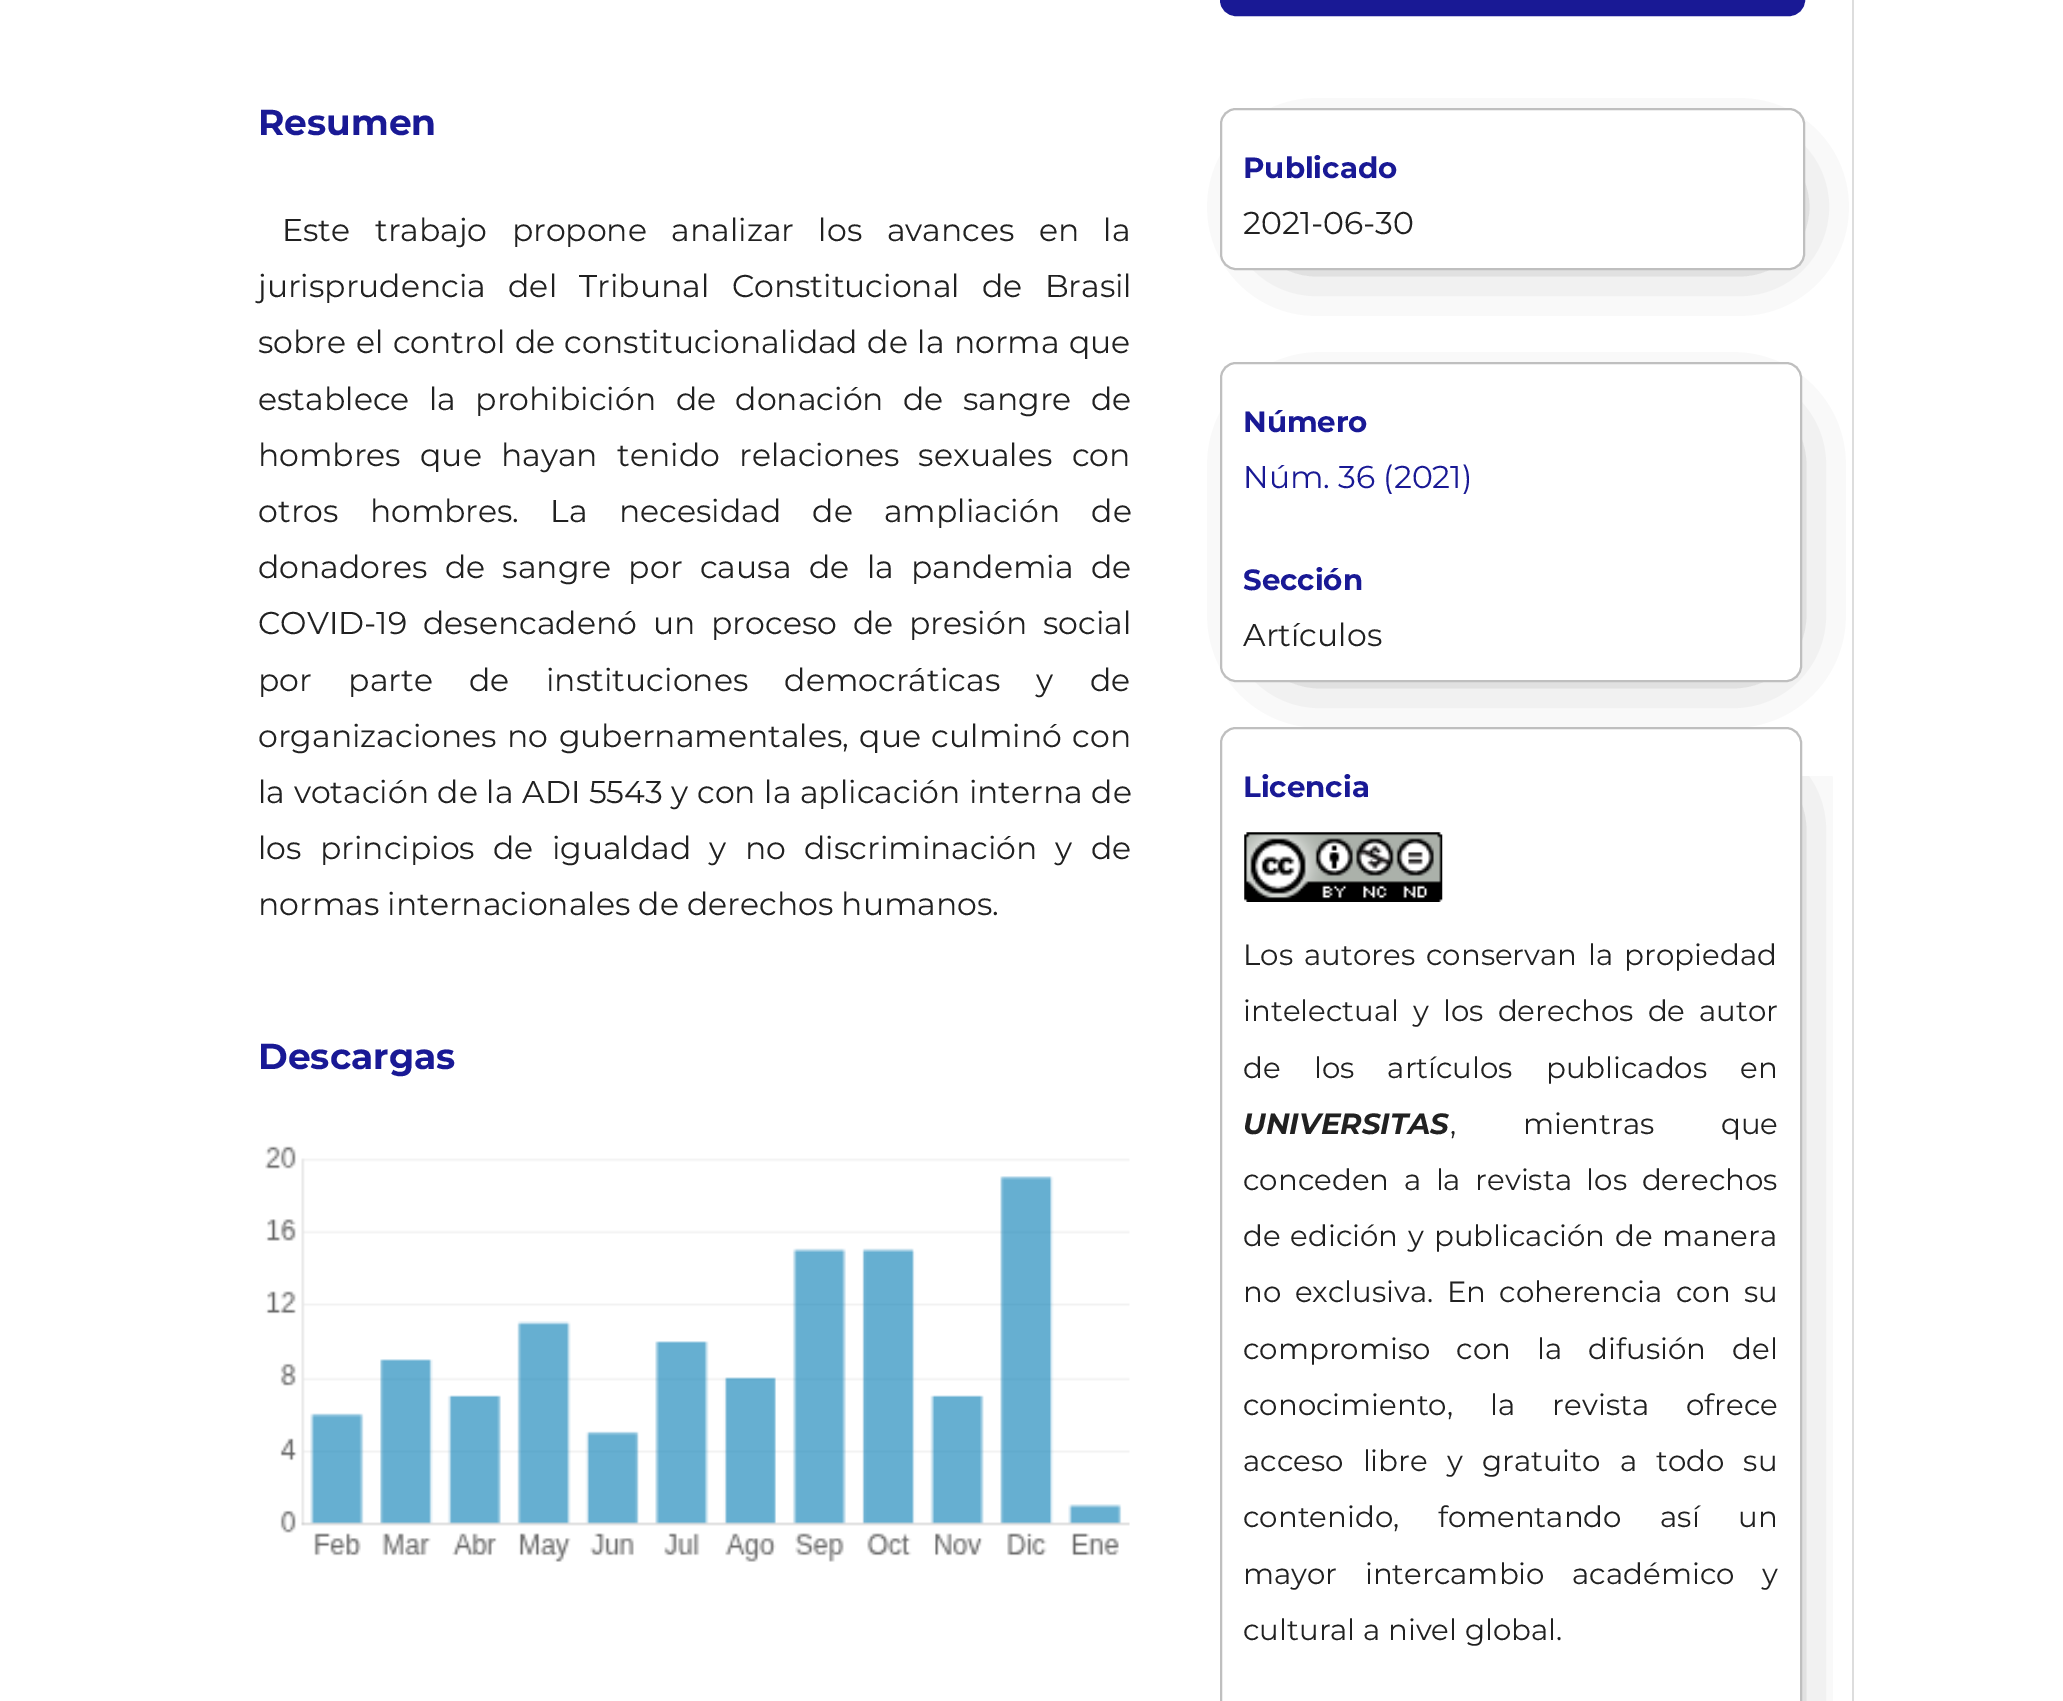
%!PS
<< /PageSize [2063 1701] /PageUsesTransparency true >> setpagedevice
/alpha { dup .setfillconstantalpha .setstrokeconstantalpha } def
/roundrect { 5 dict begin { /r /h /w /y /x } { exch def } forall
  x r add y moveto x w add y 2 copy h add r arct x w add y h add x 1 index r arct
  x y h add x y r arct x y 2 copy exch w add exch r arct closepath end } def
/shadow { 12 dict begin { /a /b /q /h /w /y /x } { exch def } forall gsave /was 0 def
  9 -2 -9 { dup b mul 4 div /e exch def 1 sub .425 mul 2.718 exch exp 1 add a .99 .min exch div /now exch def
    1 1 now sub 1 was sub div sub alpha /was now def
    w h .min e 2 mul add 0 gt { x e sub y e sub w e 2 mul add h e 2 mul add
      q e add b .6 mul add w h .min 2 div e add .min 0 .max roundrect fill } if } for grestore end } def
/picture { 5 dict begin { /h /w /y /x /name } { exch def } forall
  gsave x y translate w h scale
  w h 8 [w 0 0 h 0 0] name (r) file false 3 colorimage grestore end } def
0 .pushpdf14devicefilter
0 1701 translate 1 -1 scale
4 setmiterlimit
1 setgray
0 0 2063 1701 rectfill
/Montserrat-Bold [36 0 0 -36 0 0] selectfont
0.098 0.098 0.584 setrgbcolor
258 135 moveto (Resumen) show
/Montserrat-Regular [31.5 0 0 -31.5 0 0] selectfont
0.129 setgray
282 241 moveto 16.25 0 32 (Este trabajo propone analizar los avances en la) widthshow
258 297 moveto 14 0 32 (jurisprudencia del Tribunal Constitucional de Brasil) widthshow
258 353 moveto 1.25 0 32 (sobre el control de constitucionalidad de la norma que) widthshow
258 410 moveto 11.25 0 32 (establece la prohibición de donación de sangre de) widthshow
258 466 moveto 11 0 32 (hombres que hayan tenido relaciones sexuales con) widthshow
258 522 moveto 23 0 32 (otros hombres. La necesidad de ampliación de) widthshow
258 578 moveto 9.25 0 32 (donadores de sangre por causa de la pandemia de) widthshow
258 634 moveto 7.75 0 32 (COVID-19 desencadenó un proceso de presión social) widthshow
258 691 moveto 28.25 0 32 (por parte de instituciones democráticas y de) widthshow
258 747 moveto 2.25 0 32 (organizaciones no gubernamentales, que culminó con) widthshow
258 803 moveto 0.25 0 32 (la votación de la ADI 5543 y con la aplicación interna de) widthshow
258 859 moveto 10 0 32 (los principios de igualdad y no discriminación y de) widthshow
258 915 moveto (normas internacionales de derechos humanos.) show
/Montserrat-Bold [36 0 0 -36 0 0] selectfont
0.098 0.098 0.584 setrgbcolor
258 1069 moveto (Descargas) show
(img1.rgb) 265 1146 865 416 picture
1222.5 -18.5 580 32 13.5 roundrect gsave fill grestore
5 setlinewidth
stroke
gsave
newpath 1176 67 moveto 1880 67 lineto 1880 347 lineto 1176 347 lineto closepath 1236 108 moveto 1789 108 lineto 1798 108 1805 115 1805 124 curveto 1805 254 lineto 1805 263 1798 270 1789 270 curveto 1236 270 lineto 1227 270 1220 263 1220 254 curveto 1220 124 lineto 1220 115 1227 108 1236 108 curveto closepath eoclip newpath
0 setgray
1296 187 464 40 0 39.5 0.75 shadow
grestore
0.749 setgray
2 setlinewidth
1221 109 583 160 15 roundrect stroke
/Montserrat-Bold [29.25 0 0 -29.25 0 0] selectfont
0.098 0.098 0.584 setrgbcolor
1243 178 moveto (Publicado) show
/Montserrat-Regular [31.5 0 0 -31.5 0 0] selectfont
0.129 setgray
1243 234 moveto (2021-06-30) show
gsave
newpath 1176 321 moveto 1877 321 lineto 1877 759 lineto 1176 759 lineto closepath 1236 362 moveto 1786 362 lineto 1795 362 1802 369 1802 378 curveto 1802 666 lineto 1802 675 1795 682 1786 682 curveto 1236 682 lineto 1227 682 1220 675 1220 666 curveto 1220 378 lineto 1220 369 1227 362 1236 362 curveto closepath eoclip newpath
0 setgray
1296 441 461 198 0 39.5 0.75 shadow
grestore
0.749 setgray
1221 363 580 318 15 roundrect stroke
/Montserrat-Bold [29.25 0 0 -29.25 0 0] selectfont
0.098 0.098 0.584 setrgbcolor
1243 432 moveto (Número) show
/Montserrat-Regular [31.5 0 0 -31.5 0 0] selectfont
1243 488 moveto (Núm. 36 \(2021\)) show
/Montserrat-Bold [29.25 0 0 -29.25 0 0] selectfont
1243 590 moveto (Sección) show
/Montserrat-Regular [31.5 0 0 -31.5 0 0] selectfont
0.129 setgray
1243 646 moveto (Artículos) show
gsave
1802 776 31 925 rectclip
0 setgray
1296 806 461 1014 0 39.5 0.75 shadow
grestore
0.749 setgray
1221 728 580 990 15 roundrect stroke
/Montserrat-Bold [29.25 0 0 -29.25 0 0] selectfont
0.098 0.098 0.584 setrgbcolor
1243 797 moveto (Licencia) show
(img2.rgb) 1244 832 199 70 picture
/Montserrat-Regular [29.25 0 0 -29.25 0 0] selectfont
0.129 setgray
1243 965 moveto 3.5 0 32 (Los autores conservan la propiedad) widthshow
1243 1021 moveto 6.5 0 32 (intelectual y los derechos de autor) widthshow
1243 1078 moveto 25.5 0 32 (de los artículos publicados en) widthshow
/Montserrat-BoldItalic [29.25 0 0 -29.25 0 0] selectfont
1243 1134 moveto (UNIVERSITAS) show
/Montserrat-Regular [29.25 0 0 -29.25 0 0] selectfont
1450 1134 moveto 59 0 32 (, mientras que) widthshow
1243 1190 moveto 7 0 32 (conceden a la revista los derechos) widthshow
1243 1246 moveto 2.25 0 32 (de edición y publicación de manera) widthshow
1243 1302 moveto 5.75 0 32 (no exclusiva. En coherencia con su) widthshow
1243 1359 moveto 18.5 0 32 (compromiso con la difusión del) widthshow
1243 1415 moveto 29.5 0 32 (conocimiento, la revista ofrece) widthshow
1243 1471 moveto 11.5 0 32 (acceso libre y gratuito a todo su) widthshow
1243 1527 moveto 31 0 32 (contenido, fomentando así un) widthshow
1243 1584 moveto 20 0 32 (mayor intercambio académico y) widthshow
1243 1640 moveto (cultural a nivel global.) show
0.867 setgray
1852 0 2 1701 rectfill
.poppdf14devicefilter showpage
